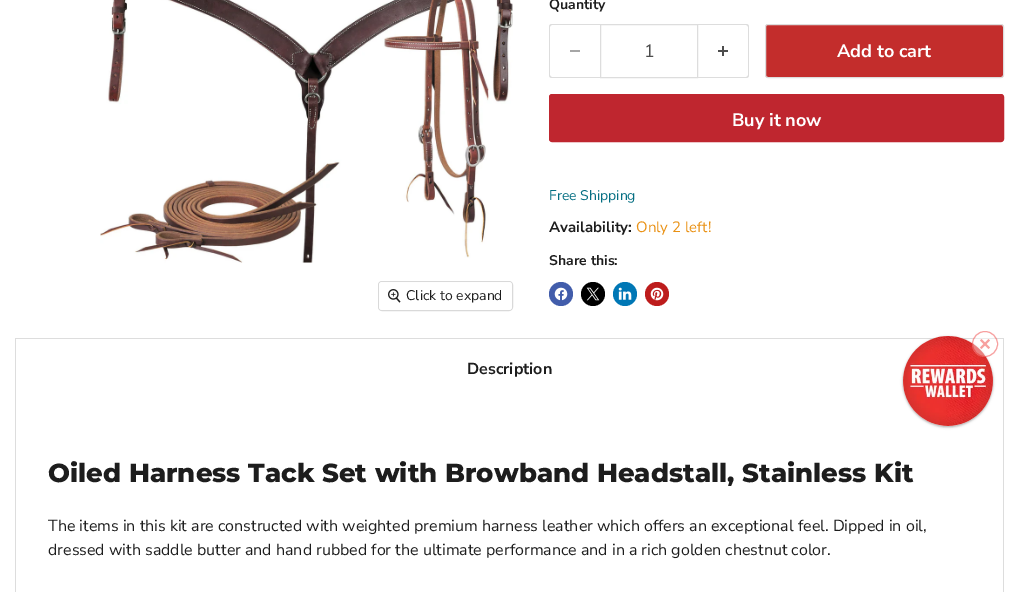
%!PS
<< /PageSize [1019 592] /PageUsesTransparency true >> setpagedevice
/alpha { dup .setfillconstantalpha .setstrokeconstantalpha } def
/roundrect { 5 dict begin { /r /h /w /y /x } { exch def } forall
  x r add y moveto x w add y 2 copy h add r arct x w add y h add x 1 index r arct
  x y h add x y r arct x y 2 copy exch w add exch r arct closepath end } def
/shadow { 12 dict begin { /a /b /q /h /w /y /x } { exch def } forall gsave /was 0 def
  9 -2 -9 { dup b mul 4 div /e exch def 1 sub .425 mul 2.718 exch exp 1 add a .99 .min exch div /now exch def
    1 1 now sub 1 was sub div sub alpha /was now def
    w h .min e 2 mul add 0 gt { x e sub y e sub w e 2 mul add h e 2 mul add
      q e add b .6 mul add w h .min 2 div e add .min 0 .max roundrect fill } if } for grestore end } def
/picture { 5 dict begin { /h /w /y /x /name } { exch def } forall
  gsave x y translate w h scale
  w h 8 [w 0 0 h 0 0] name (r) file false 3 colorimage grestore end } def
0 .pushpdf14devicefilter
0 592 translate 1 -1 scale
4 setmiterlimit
1 setgray
0 0 1019 592 rectfill
/NunitoSans-Bold [14 0 0 -14 0 0] selectfont
0.114 setgray
549 9 moveto (Quantity) show
0.867 setgray
newpath 552 24 moveto 600 24 lineto 600 78 lineto 552 78 lineto 550 78 549 77 549 75 curveto 549 27 lineto 549 25 550 24 552 24 curveto closepath 552 25 moveto 600 25 lineto 600 77 lineto 552 77 lineto 551 77 550 76 550 75 curveto 550 27 lineto 550 26 551 25 552 25 curveto closepath eofill
0.651 setgray
570 50 10 2 rectfill
0.867 setgray
600.5 24.5 97 53 rectstroke
/NunitoSans-Regular [18 0 0 -18 0 0] selectfont
0.302 setgray
644 57 moveto (1) show
0.867 setgray
newpath 698 24 moveto 746 24 lineto 748 24 749 25 749 27 curveto 749 75 lineto 749 77 748 78 746 78 curveto 698 78 lineto closepath 698 25 moveto 746 25 lineto 747 25 748 26 748 27 curveto 748 75 lineto 748 76 747 77 746 77 curveto 698 77 lineto closepath eofill
(img1.rgb) 718 46 10 10 picture
0.765 0.176 0.173 setrgbcolor
765.5 24.5 238 53 2.5 roundrect gsave fill grestore
0.867 setgray
stroke
/NunitoSans-Bold [18 0 0 -18 0 0] selectfont
1 setgray
837 57 moveto (Add to cart) show
0.749 0.149 0.184 setrgbcolor
549.5 94.5 454 47 2.5 roundrect gsave fill grestore
stroke
1 setgray
732 126 moveto (Buy it now) show
/NunitoSans-Regular [14 0 0 -14 0 0] selectfont
0.016 0.431 0.51 setrgbcolor
549 200 moveto (Free Shipping) show
/NunitoSans-Bold [15 0 0 -15 0 0] selectfont
0.114 setgray
549 232 moveto (Availability:) show
/NunitoSans-Regular [15 0 0 -15 0 0] selectfont
0.914 0.569 0.078 setrgbcolor
636 232 moveto (Only 2 left!) show
/NunitoSans-Bold [14 0 0 -14 0 0] selectfont
0.114 setgray
549 265 moveto (Share this:) show
0.259 0.365 0.671 setrgbcolor
newpath 561 294 12 0 360 arc closepath fill
(img2.rgb) 554 287 14 14 picture
0 setgray
newpath 593 294 12 0 360 arc closepath fill
(img3.rgb) 586 287 14 14 picture
0 0.467 0.71 setrgbcolor
newpath 625 294 12 0 360 arc closepath fill
(img4.rgb) 618 287 14 13 picture
0.741 0.11 0.11 setrgbcolor
newpath 657 294 12 0 360 arc closepath fill
(img5.rgb) 650 287 14 14 picture
(img6.rgb) 100 0 413 263 picture
0.851 setgray
378.5 281.5 134 29 3.5 roundrect stroke
0.9 alpha
1 setgray
379 282 133 28 3 roundrect fill
1 alpha
(img7.rgb) 388 289 13 14 picture
/NunitoSans-Regular [14 0 0 -14 0 0] selectfont
0.114 setgray
406 300 moveto (Click to expand) show
0.867 setgray
15 338 989 1 rectfill
1003 338 1 254 rectfill
15 338 1 254 rectfill
/NunitoSans-Bold [16 0 0 -16 0 0] selectfont
0.114 setgray
467 374 moveto (Description) show
/Montserrat-ExtraBold [26 0 0 -26 0 0] selectfont
48 482 moveto (Oiled Harness Tack Set with Browband Headstall, Stainless Kit) show
/NunitoSans-Regular [16 0 0 -16 0 0] selectfont
48 531 moveto (The items in this kit are constructed with weighted premium harness leather which offers an exceptional feel. Dipped in oil,) show
48 555 moveto (dressed with saddle butter and hand rubbed for the ultimate performance and in a rich golden chestnut color.) show
0 setgray
903 337 90 90 45 1 0.24 shadow
903 337 90 90 45 1.5 0.12 shadow
(img8.rgb) 903 336 90 90 picture
0.4 alpha
1 setgray
newpath 985 344 13 0 360 arc closepath fill
0.918 0.067 0.063 setrgbcolor
newpath 985 344 12.5 0 360 arc closepath stroke
1 alpha
0.965 0.627 0.624 setrgbcolor
newpath 988.5 339 moveto 990 340.5 lineto 981.5 349 lineto 980 347.5 lineto closepath fill
0.969 0.627 0.624 setrgbcolor
newpath 980 340.5 moveto 981.5 339 lineto 990 347.5 lineto 988.5 349 lineto closepath fill
.poppdf14devicefilter showpage
